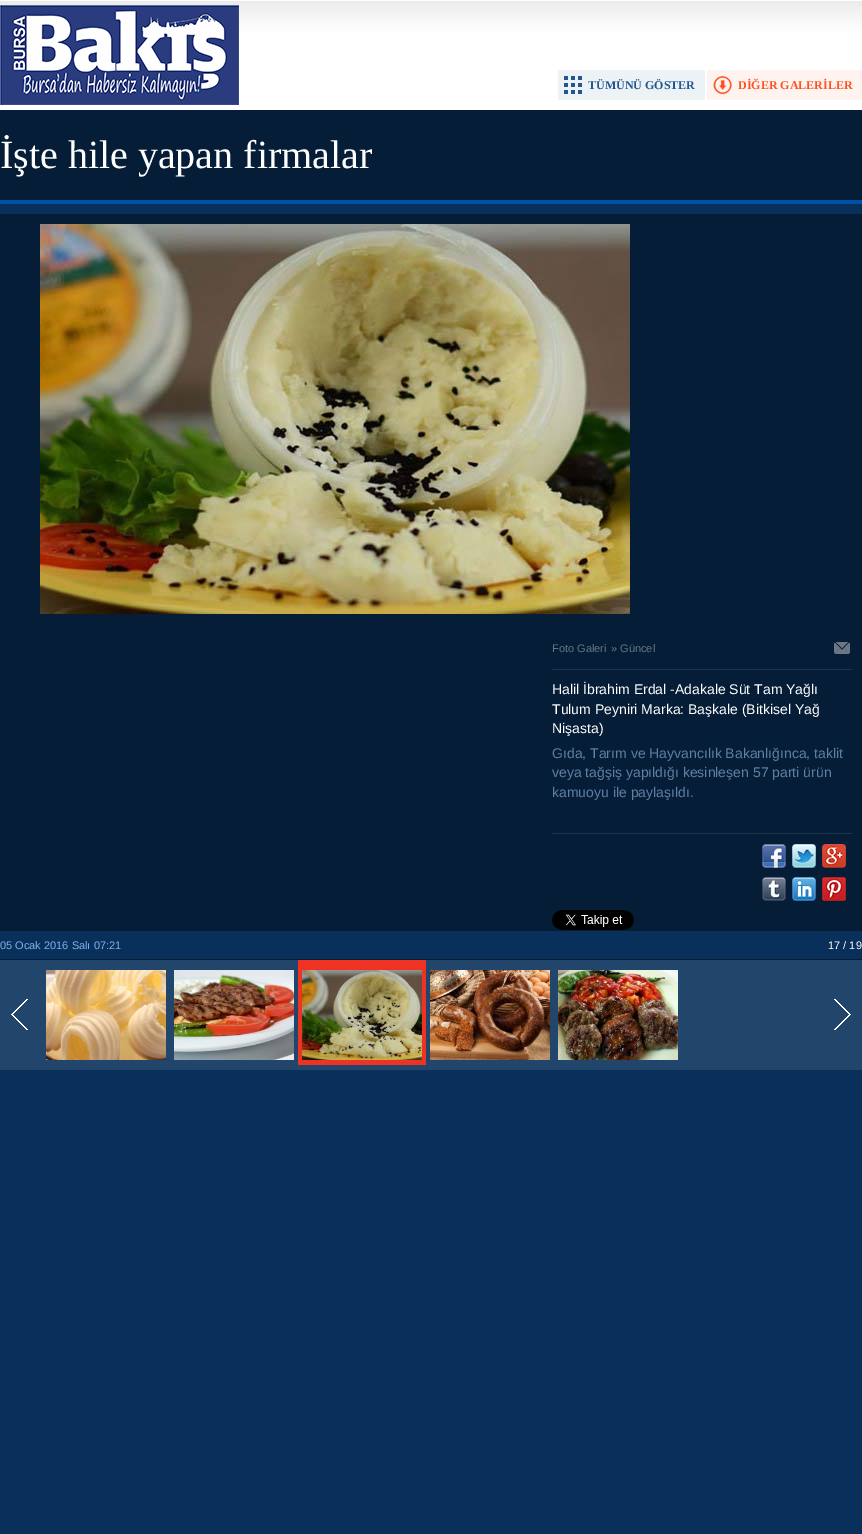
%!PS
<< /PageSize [862 1534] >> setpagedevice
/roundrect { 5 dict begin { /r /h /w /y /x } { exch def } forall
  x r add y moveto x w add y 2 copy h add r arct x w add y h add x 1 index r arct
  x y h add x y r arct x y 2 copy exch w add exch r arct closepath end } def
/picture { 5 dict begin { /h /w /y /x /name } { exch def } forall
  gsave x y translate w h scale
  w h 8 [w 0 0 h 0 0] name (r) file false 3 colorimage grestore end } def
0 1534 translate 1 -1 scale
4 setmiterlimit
0.031 0.188 0.353 setrgbcolor
0 0 862 1534 rectfill
(img1.rgb) 0 0 862 200 picture
(img2.rgb) 0 5 239 100 picture
0.929 0.949 0.969 setrgbcolor
558 70 147 30 2 roundrect fill
(img3.rgb) 564 76 18 18 picture
/LiberationSerif-Bold [12 0 0 -12 0 0] selectfont
0.129 0.337 0.557 setrgbcolor
588 89 moveto (TÜMÜNÜ GÖSTER) show
1 0.953 0.937 setrgbcolor
707 70 155 30 2 roundrect fill
(img4.rgb) 713 75 19 20 picture
0.992 0.31 0.125 setrgbcolor
738 89 moveto (DİĞER GALERİLER) show
0 0.322 0.659 setrgbcolor
0 200 862 4 rectfill
/LiberationSerif-Regular [40 0 0 -40 0 0] selectfont
1 setgray
0 168 moveto (İşte hile yapan firmalar) show
0.02 0.114 0.212 setrgbcolor
0 214 862 717 rectfill
(img5.rgb) 40 224 590 390 picture
/LiberationSans-Regular [11 0 0 -11 0 0] selectfont
0.412 0.467 0.525 setrgbcolor
552 652 moveto (Foto Galeri) show
611 652 moveto (» Güncel) show
(img6.rgb) 834 642 16 13 picture
0.118 0.204 0.29 setrgbcolor
552 669 300 1 rectfill
/LiberationSans-Regular [14 0 0 -14 0 0] selectfont
1 setgray
552 694 moveto (Halil İbrahim Erdal -Adakale Süt Tam Yağlı) show
552 714 moveto (Tulum Peyniri Marka: Başkale \(Bitkisel Yağ) show
552 733 moveto (Nişasta\)) show
0.118 0.204 0.29 setrgbcolor
552 833 300 1 rectfill
0.365 0.502 0.643 setrgbcolor
552 758 moveto (Gıda, Tarım ve Hayvancılık Bakanlığınca, taklit) show
552 777 moveto (veya tağşiş yapıldığı kesinleşen 57 parti ürün) show
552 797 moveto (kamuoyu ile paylaşıldı.) show
(img7.rgb) 762 844 24 24 picture
(img8.rgb) 792 844 24 24 picture
(img9.rgb) 822 844 24 24 picture
(img10.rgb) 762 877 24 24 picture
(img11.rgb) 792 877 24 24 picture
(img12.rgb) 822 877 24 24 picture
(img13.rgb) 552 910 82 20 picture
/LiberationSans-Regular [11 0 0 -11 0 0] selectfont
0.49 0.698 0.914 setrgbcolor
0 949 moveto (05 Ocak 2016 Salı 07:21) show
1 setgray
828 949 moveto (17 / 19) show
0.129 0.271 0.42 setrgbcolor
0 960 862 110 rectfill
0.02 0.114 0.212 setrgbcolor
0 959 862 1 rectfill
(img14.rgb) 11 999 17 31 picture
(img15.rgb) 46 970 120 90 picture
(img16.rgb) 174 970 120 90 picture
0.933 0.196 0.141 setrgbcolor
298 960 128 105 rectfill
(img17.rgb) 302 970 120 90 picture
(img18.rgb) 430 970 120 90 picture
(img19.rgb) 558 970 120 90 picture
(img20.rgb) 834 999 17 31 picture
showpage
